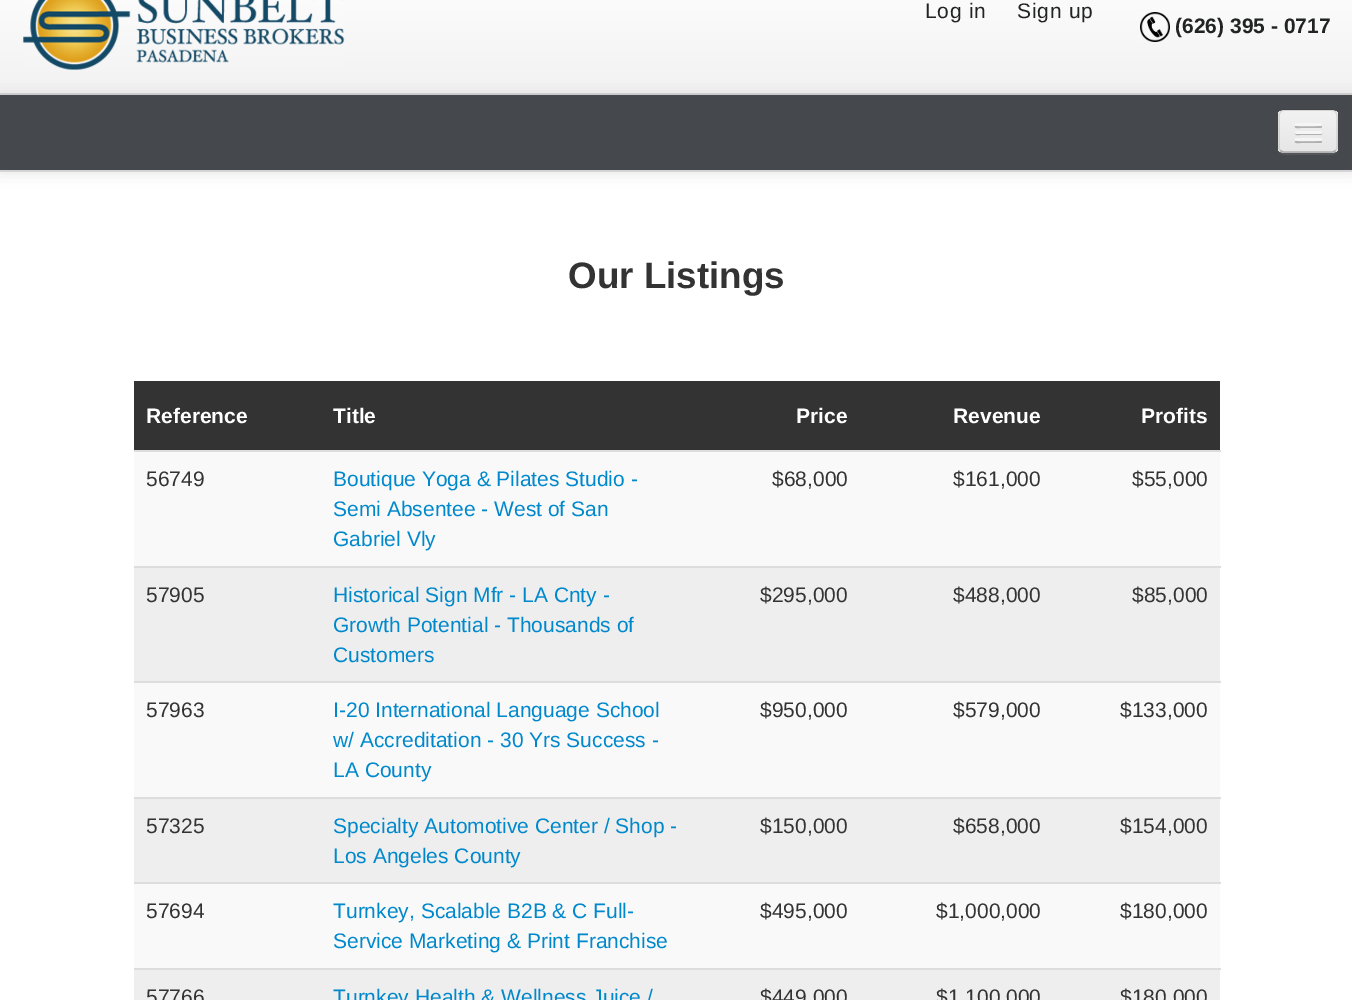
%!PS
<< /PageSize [1352 1000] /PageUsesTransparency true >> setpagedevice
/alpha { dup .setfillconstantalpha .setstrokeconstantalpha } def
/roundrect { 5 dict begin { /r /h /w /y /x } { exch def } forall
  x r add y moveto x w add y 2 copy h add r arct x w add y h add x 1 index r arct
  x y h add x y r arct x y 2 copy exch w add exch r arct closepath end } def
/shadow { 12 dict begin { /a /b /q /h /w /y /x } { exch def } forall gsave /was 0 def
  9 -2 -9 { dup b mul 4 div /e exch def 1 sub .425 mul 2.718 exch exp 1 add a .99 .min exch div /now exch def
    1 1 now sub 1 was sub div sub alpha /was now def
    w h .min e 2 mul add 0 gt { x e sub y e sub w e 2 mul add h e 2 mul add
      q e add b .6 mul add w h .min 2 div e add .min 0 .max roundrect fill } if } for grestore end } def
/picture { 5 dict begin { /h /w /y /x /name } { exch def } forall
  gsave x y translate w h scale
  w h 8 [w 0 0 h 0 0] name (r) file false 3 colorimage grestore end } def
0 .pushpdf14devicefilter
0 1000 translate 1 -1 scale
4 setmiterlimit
1 setgray
0 0 1352 1000 rectfill
gsave newpath 0 0 moveto 1352 0 lineto 1352 93 lineto 0 93 lineto closepath clip newpath
<< /ShadingType 2 /ColorSpace /DeviceRGB /Coords [677 -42 677 93] /Extend [true true] /Function << /FunctionType 2 /Domain [0 1] /C0 [1 1 1] /C1 [0.949 0.949 0.949] /N 1 >> >> shfill grestore
0.831 setgray
0 93 1352 2 rectfill
(img1.rgb) 23 0 322 70 picture
/LiberationSans-Regular [21 0 0 -21 0 0] selectfont
0.133 0.137 0.137 setrgbcolor
925 18 moveto 0.75 0 (Log in) ashow
1017 18 moveto 0.75 0 (Sign up) ashow
(img2.rgb) 1140 12 30 30 picture
/LiberationSans-Bold [21 0 0 -21 0 0] selectfont
1175 33 moveto (\(626\) 395 - 0717) show
0 setgray
0 96 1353 77 0 7.5 0.1 shadow
0.271 0.282 0.298 setrgbcolor
0 95 1352 75 rectfill
0.831 setgray
0 170 1352 2 rectfill
0.325 0.337 0.349 setrgbcolor
newpath 1278 147 moveto 1278 156 1284 155 1292 155 curveto 1324 155 lineto 1332 155 1338 156 1338 147 curveto 1338 150 1335 153 1332 153 curveto 1284 153 lineto 1281 153 1278 150 1278 147 curveto closepath fill
0.929 setgray
1278 110 60 43 6 roundrect fill
gsave
1278 110 60 43 6 roundrect clip newpath
gsave newpath 1278 111 moveto 1338 111 lineto 1338 152 lineto 1278 152 lineto closepath clip newpath
<< /ShadingType 2 /ColorSpace /DeviceRGB /Coords [1308 111 1308 152] /Extend [true true] /Function << /FunctionType 2 /Domain [0 1] /C0 [0.949 0.949 0.949] /C1 [0.902 0.902 0.902] /N 1 >> >> shfill grestore
grestore
0.25 alpha
0 setgray
1.5 setlinewidth
newpath 1335.5 150.5 moveto 1334.5 151.5 1333.5 152 1332 152 curveto 1284 152 lineto 1282.5 152 1281.5 151.5 1280.5 150.5 curveto stroke
0.1 alpha
newpath 1280.5 150.5 moveto 1279.5 149.5 1279 148.5 1279 147 curveto 1279 115.5 lineto 1279 114 1279.5 113 1280.5 112 curveto 1281.5 111 1282.5 110 1284 110 curveto 1332 110 lineto 1333.5 110 1334.5 111 1335.5 112 curveto 1336.5 113 1337 114 1337 115.5 curveto 1337 147 lineto 1337 148.5 1336.5 149.5 1335.5 150.5 curveto stroke
1 alpha
0.698 setgray
newpath 1295 126 moveto 1293.5 129 1300.5 128 1300.5 128 curveto 1321 128 lineto 1322 127.5 1322.5 126 1321.5 125 curveto 1320 126 lineto 1318 126.5 1296 126.5 1295 126 curveto closepath fill
0.961 setgray
1295 123 27 3 1.5 roundrect fill
0.69 setgray
newpath 1295 133 moveto 1294.5 136 1300 135 1300.5 135 curveto 1320.5 135 lineto 1322 135 1322.5 133 1321.5 132.5 curveto 1320.5 133.5 lineto 1319 134 1295.5 133.5 1295 133 curveto closepath fill
0.961 setgray
1295 131 27 3 1.5 roundrect fill
0.686 setgray
newpath 1295 141 moveto 1293.5 144 1300.5 143 1300.5 143 curveto 1321 143 lineto 1322 142.5 1322.5 141 1321.5 140 curveto 1320 141 lineto 1318 141.5 1296 141.5 1295 141 curveto closepath fill
0.961 setgray
1295 138 27 3 1.5 roundrect fill
/LiberationSans-Bold [36.75 0 0 -36.75 0 0] selectfont
0.2 setgray
568 288 moveto (Our Listings) show
134 381 1086 69 rectfill
/LiberationSans-Bold [21 0 0 -21 0 0] selectfont
1 setgray
146 423 moveto (Reference) show
333 423 moveto (Title) show
796 423 moveto (Price) show
953 423 moveto (Revenue) show
1141 423 moveto (Profits) show
0.976 setgray
134 452 1086 114 rectfill
/LiberationSans-Regular [21 0 0 -21 0 0] selectfont
0.2 setgray
146 486 moveto (56749) show
0 0.533 0.8 setrgbcolor
333 486 moveto (Boutique Yoga & Pilates Studio -) show
333 516 moveto (Semi Absentee - West of San) show
333 546 moveto (Gabriel Vly) show
0.2 setgray
772 486 moveto ($68,000) show
953 486 moveto ($161,000) show
0.867 setgray
134 450 1087 2 rectfill
0.2 setgray
1132 486 moveto ($55,000) show
0.933 setgray
134 568 1086 113 rectfill
0.2 setgray
146 602 moveto (57905) show
0 0.533 0.8 setrgbcolor
333 602 moveto (Historical Sign Mfr - LA Cnty -) show
333 632 moveto (Growth Potential - Thousands of) show
333 662 moveto (Customers) show
0.2 setgray
760 602 moveto ($295,000) show
953 602 moveto ($488,000) show
0.867 setgray
134 566 1087 2 rectfill
0.2 setgray
1132 602 moveto ($85,000) show
0.976 setgray
134 683 1086 114 rectfill
0.2 setgray
146 717 moveto (57963) show
0 0.533 0.8 setrgbcolor
333 717 moveto (I-20 International Language School) show
333 747 moveto (w/ Accreditation - 30 Yrs Success -) show
333 777 moveto (LA County) show
0.2 setgray
760 717 moveto ($950,000) show
953 717 moveto ($579,000) show
0.867 setgray
134 681 1087 2 rectfill
0.2 setgray
1120 717 moveto ($133,000) show
0.933 setgray
134 799 1086 83 rectfill
0.2 setgray
146 833 moveto (57325) show
0 0.533 0.8 setrgbcolor
333 833 moveto (Specialty Automotive Center / Shop -) show
333 863 moveto (Los Angeles County) show
0.2 setgray
760 833 moveto ($150,000) show
953 833 moveto ($658,000) show
0.867 setgray
134 797 1087 2 rectfill
0.2 setgray
1120 833 moveto ($154,000) show
0.976 setgray
134 884 1086 84 rectfill
0.2 setgray
146 918 moveto (57694) show
0 0.533 0.8 setrgbcolor
333 918 moveto (Turnkey, Scalable B2B & C Full-) show
333 948 moveto (Service Marketing & Print Franchise) show
0.2 setgray
760 918 moveto ($495,000) show
936 918 moveto ($1,000,000) show
0.867 setgray
134 882 1087 2 rectfill
0.2 setgray
1120 918 moveto ($180,000) show
0.933 setgray
134 970 1086 30 rectfill
0.2 setgray
146 1004 moveto (57766) show
0 0.533 0.8 setrgbcolor
333 1004 moveto (Turnkey Health & Wellness Juice /) show
0.2 setgray
760 1004 moveto ($449,000) show
936 1004 moveto ($1,100,000) show
0.867 setgray
134 968 1087 2 rectfill
0.2 setgray
1120 1004 moveto ($180,000) show
.poppdf14devicefilter showpage
